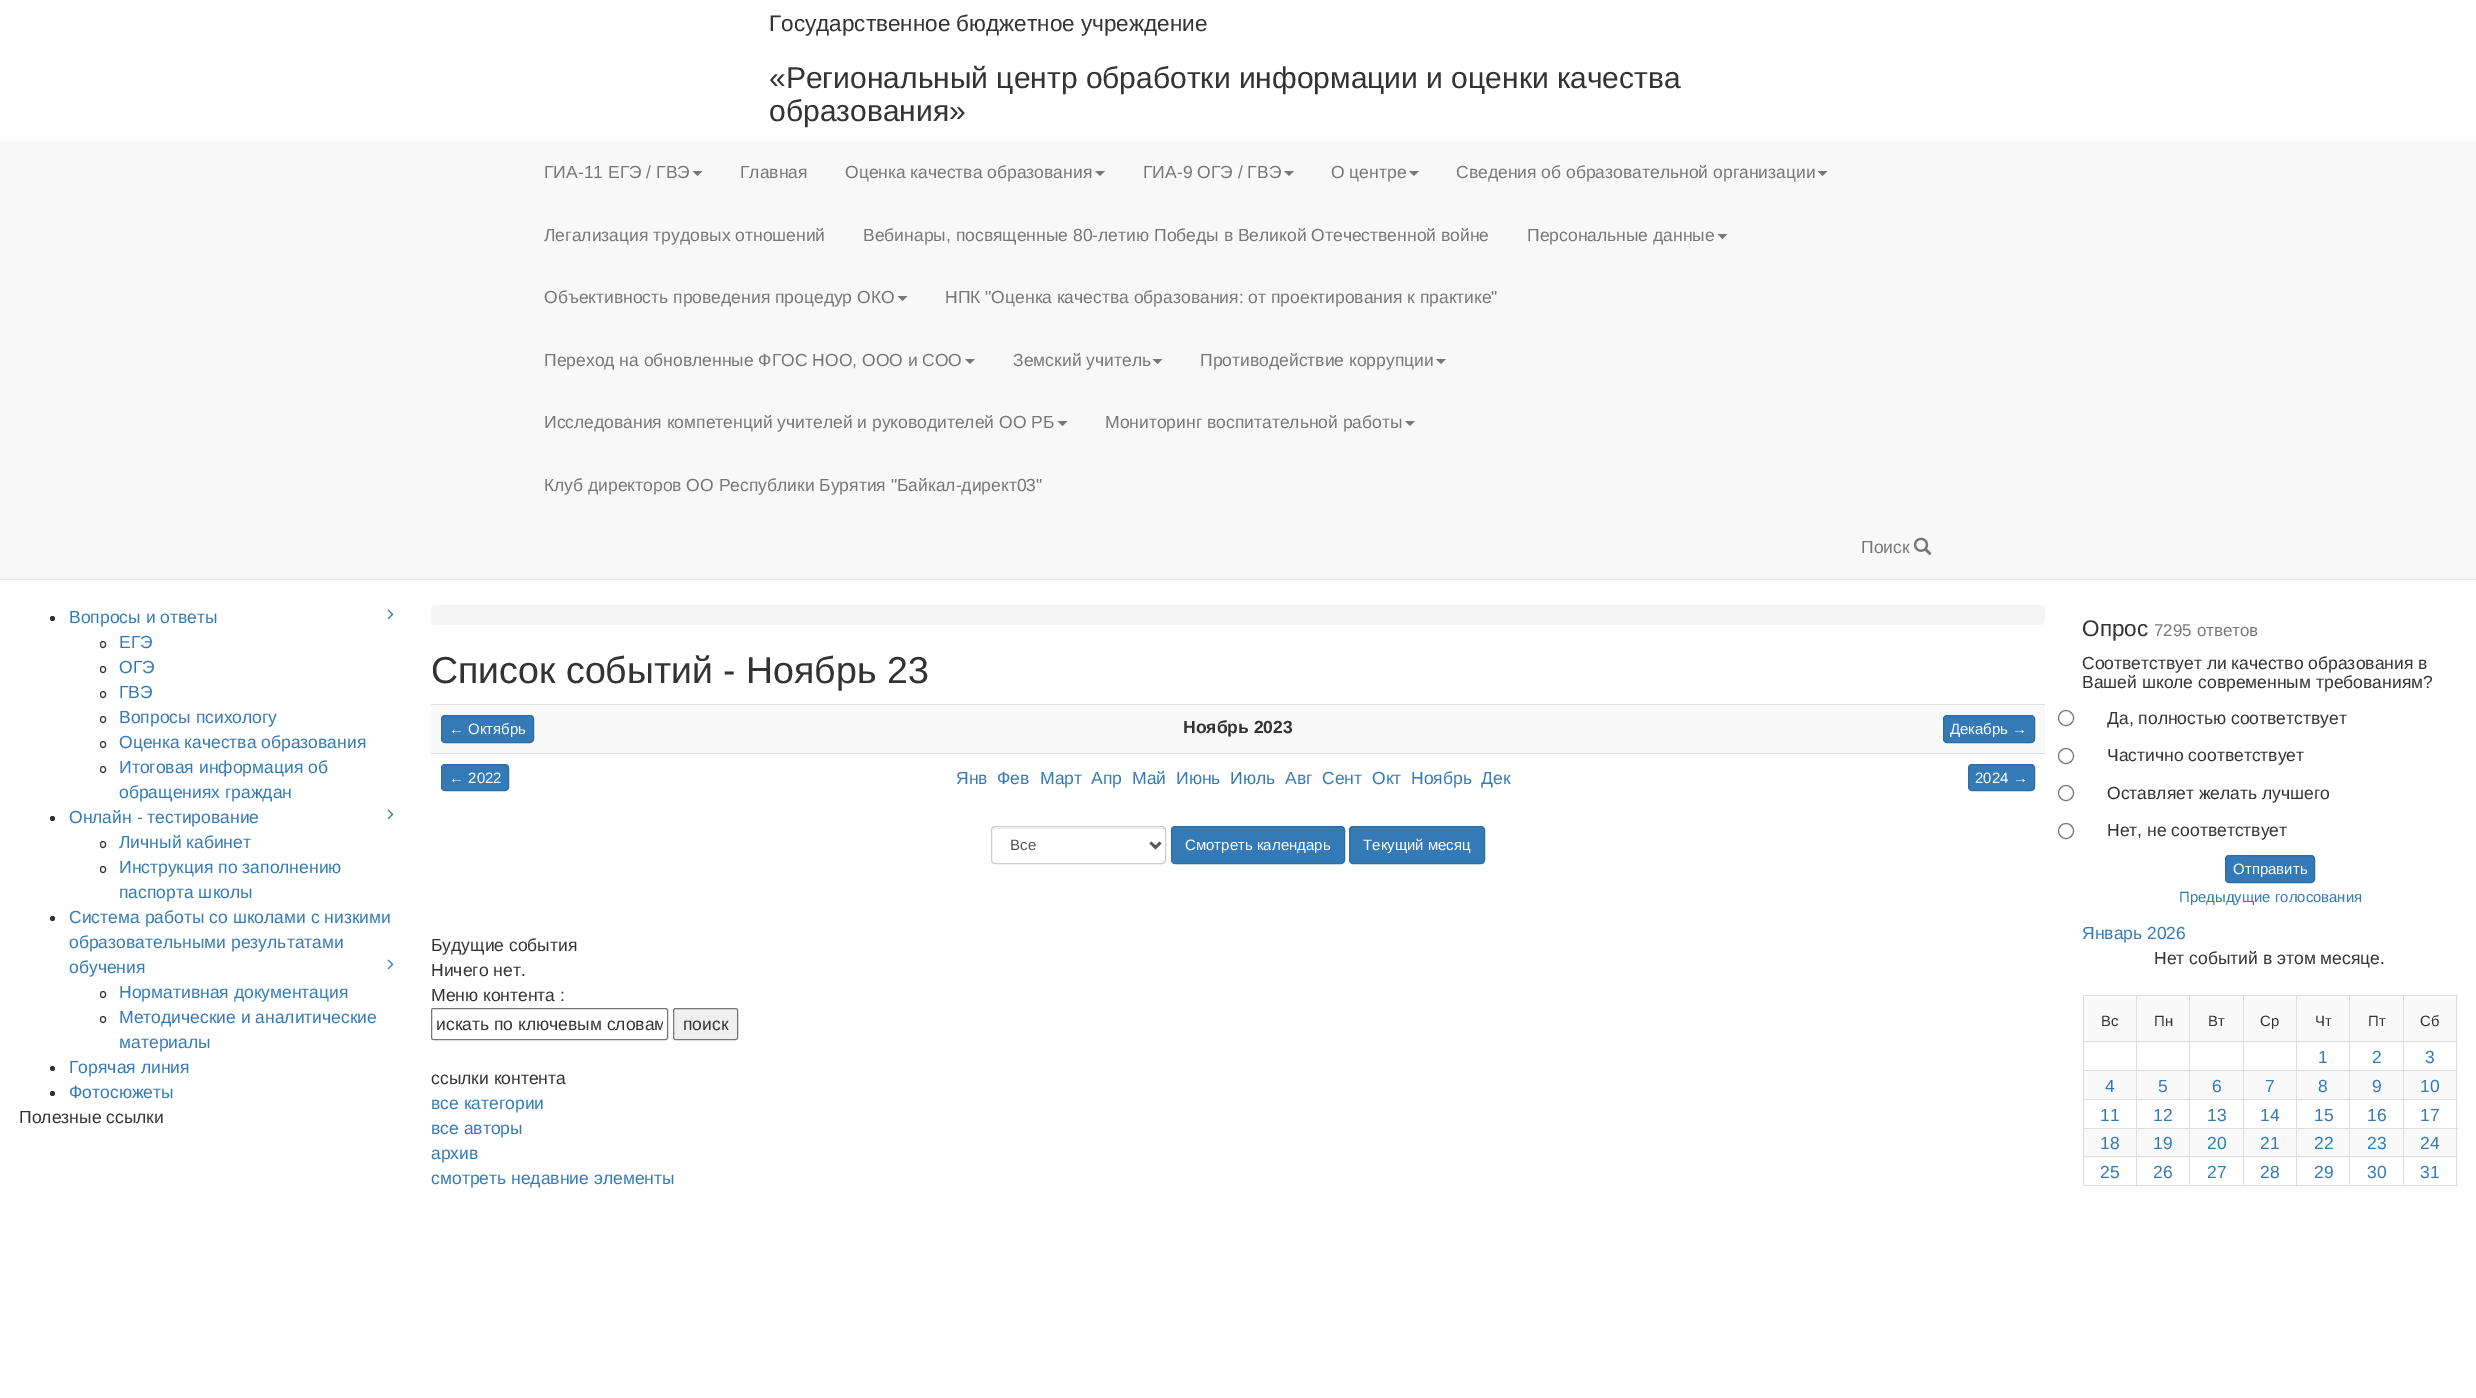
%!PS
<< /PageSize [2476 1398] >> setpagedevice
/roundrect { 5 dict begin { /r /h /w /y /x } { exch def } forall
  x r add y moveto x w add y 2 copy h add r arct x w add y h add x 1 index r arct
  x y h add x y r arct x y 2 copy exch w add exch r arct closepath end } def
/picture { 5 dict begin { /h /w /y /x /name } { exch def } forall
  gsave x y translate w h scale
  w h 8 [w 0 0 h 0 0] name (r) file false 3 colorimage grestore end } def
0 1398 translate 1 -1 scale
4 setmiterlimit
1 setgray
0 0 2476 1398 rectfill
/LiberationSans-Regular [22.5 0 0 -22.5 0 0] selectfont
0.2 setgray
769 31 moveto (Государственное бюджетное учреждение) show
/LiberationSans-Regular [30 0 0 -30 0 0] selectfont
769 88 moveto («Региональный центр обработки информации и оценки качества) show
769 121 moveto (образования») show
0.973 setgray
0 141 2476 438 rectfill
0.906 setgray
0 579 2476 1 rectfill
/LiberationSans-Regular [17.5 0 0 -17.5 0 0] selectfont
0.467 setgray
544 178 moveto (ГИА-11 ЕГЭ / ГВЭ) show
newpath 692.5 171 moveto 702.5 171 lineto 697.5 176 lineto closepath fill
740 178 moveto (Главная) show
845 178 moveto (Оценка качества образования) show
newpath 1095 171 moveto 1105 171 lineto 1100 176 lineto closepath fill
1143 178 moveto (ГИА-9 ОГЭ / ГВЭ) show
newpath 1284 171 moveto 1294 171 lineto 1289 176 lineto closepath fill
1331 178 moveto (О центре) show
newpath 1409 171 moveto 1419 171 lineto 1414 176 lineto closepath fill
1456 178 moveto (Сведения об образовательной организации) show
newpath 1817.5 171 moveto 1827.5 171 lineto 1822.5 176 lineto closepath fill
544 241 moveto (Легализация трудовых отношений) show
863 241 moveto (Вебинары, посвященные 80-летию Победы в Великой Отечественной войне) show
1527 241 moveto (Персональные данные) show
newpath 1717.5 234 moveto 1727.5 234 lineto 1722.5 239 lineto closepath fill
544 303 moveto (Объективность проведения процедур ОКО) show
newpath 897.5 296 moveto 907.5 296 lineto 902.5 301 lineto closepath fill
945 303 moveto (НПК "Оценка качества образования: от проектирования к практике") show
544 366 moveto (Переход на обновленные ФГОС НОО, ООО и СОО) show
newpath 965 359 moveto 975 359 lineto 970 364 lineto closepath fill
1013 366 moveto (Земский учитель) show
newpath 1152.5 359 moveto 1162.5 359 lineto 1157.5 364 lineto closepath fill
1200 366 moveto (Противодействие коррупции) show
newpath 1436 359 moveto 1446 359 lineto 1441 364 lineto closepath fill
544 428 moveto (Исследования компетенций учителей и руководителей ОО РБ) show
newpath 1057.5 421 moveto 1067.5 421 lineto 1062.5 426 lineto closepath fill
1105 428 moveto (Мониторинг воспитательной работы) show
newpath 1405 421 moveto 1415 421 lineto 1410 426 lineto closepath fill
544 491 moveto (Клуб директоров ОО Республики Бурятия "Байкал-директ03") show
1861 553 moveto (Поиск) show
(img1.rgb) 1913 537 19 18 picture
0.2 setgray
newpath 52.5 618.5 2.5 0 360 arc closepath fill
0.2 0.478 0.718 setrgbcolor
69 623 moveto (Вопросы и ответы) show
(img2.rgb) 387 609 7 11 picture
0.2 setgray
100.5 641.5 5 6 2.5 roundrect stroke
0.2 0.478 0.718 setrgbcolor
119 648 moveto (ЕГЭ) show
0.2 setgray
100.5 666.5 5 6 2.5 roundrect stroke
0.2 0.478 0.718 setrgbcolor
119 673 moveto (ОГЭ) show
0.2 setgray
100.5 691.5 5 6 2.5 roundrect stroke
0.2 0.478 0.718 setrgbcolor
119 698 moveto (ГВЭ) show
0.2 setgray
100.5 716.5 5 6 2.5 roundrect stroke
0.2 0.478 0.718 setrgbcolor
119 723 moveto (Вопросы психологу) show
0.2 setgray
100.5 741.5 5 6 2.5 roundrect stroke
0.2 0.478 0.718 setrgbcolor
119 748 moveto (Оценка качества образования) show
0.2 setgray
100.5 766.5 5 6 2.5 roundrect stroke
0.2 0.478 0.718 setrgbcolor
119 773 moveto (Итоговая информация об) show
119 798 moveto (обращениях граждан) show
0.2 setgray
newpath 52.5 818.5 2.5 0 360 arc closepath fill
0.2 0.478 0.718 setrgbcolor
69 823 moveto (Онлайн - тестирование) show
(img2.rgb) 387 809 7 11 picture
0.2 setgray
100.5 841.5 5 6 2.5 roundrect stroke
0.2 0.478 0.718 setrgbcolor
119 848 moveto (Личный кабинет) show
0.2 setgray
100.5 866.5 5 6 2.5 roundrect stroke
0.2 0.478 0.718 setrgbcolor
119 873 moveto (Инструкция по заполнению) show
119 898 moveto (паспорта школы) show
0.2 setgray
newpath 52.5 918.5 2.5 0 360 arc closepath fill
0.2 0.478 0.718 setrgbcolor
69 923 moveto (Система работы со школами с низкими) show
69 948 moveto (образовательными результатами) show
69 973 moveto (обучения) show
(img2.rgb) 387 959 7 11 picture
0.2 setgray
100.5 991.5 5 6 2.5 roundrect stroke
0.2 0.478 0.718 setrgbcolor
119 998 moveto (Нормативная документация) show
0.2 setgray
100.5 1016.5 5 6 2.5 roundrect stroke
0.2 0.478 0.718 setrgbcolor
119 1023 moveto (Методические и аналитические) show
119 1048 moveto (материалы) show
0.2 setgray
newpath 52.5 1068.5 2.5 0 360 arc closepath fill
0.2 0.478 0.718 setrgbcolor
69 1073 moveto (Горячая линия) show
0.2 setgray
newpath 52.5 1093.5 2.5 0 360 arc closepath fill
0.2 0.478 0.718 setrgbcolor
69 1098 moveto (Фотосюжеты) show
0.2 setgray
19 1123 moveto (Полезные ссылки) show
0.961 setgray
431 605 1614 20 5 roundrect fill
/LiberationSans-Regular [37.5 0 0 -37.5 0 0] selectfont
0.2 setgray
431 683 moveto (Список событий - Ноябрь 23) show
0.976 setgray
431 705 1614 48 rectfill
0.2 0.478 0.718 setrgbcolor
441.5 715.5 92 27 3.5 roundrect gsave fill grestore
0.18 0.427 0.643 setrgbcolor
stroke
/LiberationSans-Regular [15 0 0 -15 0 0] selectfont
1 setgray
449 734 moveto (← Октябрь) show
/LiberationSans-Bold [17.5 0 0 -17.5 0 0] selectfont
0.2 setgray
1183 733 moveto (Ноябрь 2023) show
0.867 setgray
431 704 1614 1 rectfill
0.2 0.478 0.718 setrgbcolor
1943.5 715.5 91 27 3.5 roundrect gsave fill grestore
0.18 0.427 0.643 setrgbcolor
stroke
/LiberationSans-Regular [15 0 0 -15 0 0] selectfont
1 setgray
1950 734 moveto (Декабрь →) show
0.2 0.478 0.718 setrgbcolor
441.5 764.5 67 26 3.5 roundrect gsave fill grestore
0.18 0.427 0.643 setrgbcolor
stroke
1 setgray
449 783 moveto (← 2022) show
/LiberationSans-Regular [17.5 0 0 -17.5 0 0] selectfont
0.2 0.478 0.718 setrgbcolor
956 784 moveto (Янв) show
997 784 moveto (Фев) show
1040 784 moveto (Март) show
1091 784 moveto (Апр) show
1132 784 moveto (Май) show
1176 784 moveto (Июнь) show
1230 784 moveto (Июль) show
1285 784 moveto (Авг) show
1322 784 moveto (Сент) show
1372 784 moveto (Окт) show
1411 784 moveto (Ноябрь) show
1481 784 moveto (Дек) show
0.867 setgray
431 753 1614 1 rectfill
0.2 0.478 0.718 setrgbcolor
1968.5 764.5 66 26 3.5 roundrect gsave fill grestore
0.18 0.427 0.643 setrgbcolor
stroke
/LiberationSans-Regular [15 0 0 -15 0 0] selectfont
1 setgray
1975 783 moveto (2024 →) show
0.925 setgray
newpath 995 829 moveto 1162 829 lineto 1164 829 1165 830 1165 831 curveto 1165 830 lineto 1165 829 1164 828 1162 828 curveto 996 828 lineto 994 828 994 829 993 830 curveto closepath fill
0.8 setgray
991.5 826.5 174 37 3.5 roundrect stroke
0.333 setgray
2.5 setlinewidth
newpath 1150.5 842.5 moveto 1155.5 847.5 lineto 1160.5 842.5 lineto stroke
1010 850 moveto (Все) show
0.2 0.478 0.718 setrgbcolor
1171.5 826.5 173 37 3.5 roundrect gsave fill grestore
0.18 0.427 0.643 setrgbcolor
1 setlinewidth
stroke
1 setgray
1185 850 moveto (Смотреть календарь) show
0.2 0.478 0.718 setrgbcolor
1349.5 826.5 135 37 3.5 roundrect gsave fill grestore
0.18 0.427 0.643 setrgbcolor
stroke
1 setgray
1363 850 moveto (Текущий месяц) show
/LiberationSans-Regular [17.5 0 0 -17.5 0 0] selectfont
0.2 setgray
431 951 moveto (Будущие события) show
431 976 moveto (Ничего нет.) show
431 1001 moveto (Меню контента :) show
0.463 setgray
431.5 1008.5 236 31 2 roundrect stroke
gsave
436 1011 227 25 rectclip
0.2 setgray
436 1030 moveto (искать по ключевым словам) show
grestore
0.937 setgray
673.5 1008.5 64 31 2 roundrect gsave fill grestore
0.463 setgray
stroke
0.2 setgray
683 1030 moveto (поиск) show
431 1084 moveto (ссылки контента) show
0.2 0.478 0.718 setrgbcolor
431 1109 moveto (все категории) show
431 1134 moveto (все авторы) show
431 1159 moveto (архив) show
431 1184 moveto (смотреть недавние элементы) show
/LiberationSans-Regular [22.5 0 0 -22.5 0 0] selectfont
0.2 setgray
2082 636 moveto (Опрос) show
/LiberationSans-Regular [17 0 0 -17 0 0] selectfont
0.467 setgray
2154 636 moveto (7295 ответов) show
/LiberationSans-Regular [17.5 0 0 -17.5 0 0] selectfont
0.2 setgray
2082 669 moveto (Соответствует ли качество образования в) show
2082 688 moveto (Вашей школе современным требованиям?) show
0.463 setgray
newpath 2066 718 7.5 0 360 arc closepath stroke
0.2 setgray
2107 724 moveto (Да, полностью соответствует) show
0.463 setgray
newpath 2066 756 7.5 0 360 arc closepath stroke
0.2 setgray
2107 761 moveto (Частично соответствует) show
0.463 setgray
newpath 2066 793 7.5 0 360 arc closepath stroke
0.2 setgray
2107 799 moveto (Оставляет желать лучшего) show
0.463 setgray
newpath 2066 831 7.5 0 360 arc closepath stroke
0.2 setgray
2107 836 moveto (Нет, не соответствует) show
0.2 0.478 0.718 setrgbcolor
2225.5 855.5 89 27 3.5 roundrect gsave fill grestore
0.18 0.427 0.643 setrgbcolor
stroke
/LiberationSans-Regular [15 0 0 -15 0 0] selectfont
1 setgray
2233 874 moveto (Отправить) show
/LiberationSans-Regular [14.9 0 0 -14.9 0 0] selectfont
0.2 0.478 0.718 setrgbcolor
2179 902 moveto (Предыдущие голосования) show
/LiberationSans-Regular [17.5 0 0 -17.5 0 0] selectfont
2082 939 moveto (Январь 2026) show
0.2 setgray
2154 964 moveto (Нет событий в этом месяце.) show
0.867 setgray
2083 995 375 1 rectfill
2456 995 1 191 rectfill
2083 1185 375 1 rectfill
2083 995 1 191 rectfill
0.976 setgray
2084 996 372 47 rectfill
/LiberationSans-Regular [14.9 0 0 -14.9 0 0] selectfont
0.2 setgray
2101 1026 moveto (Вс) show
0.867 setgray
2403 1041 55 1 rectfill
2403 1070 55 1 rectfill
0.976 setgray
2084 1071 372 28 rectfill
0.867 setgray
2403 1099 55 1 rectfill
2403 1128 55 1 rectfill
0.976 setgray
2084 1129 372 29 rectfill
0.867 setgray
2403 1156 55 1 rectfill
2403 1156 1 30 rectfill
2349 1156 55 1 rectfill
2403 1128 1 30 rectfill
2349 1128 55 1 rectfill
2403 1099 1 30 rectfill
2349 1099 55 1 rectfill
2403 1070 1 30 rectfill
2349 1070 55 1 rectfill
2403 1041 1 30 rectfill
2349 1041 55 1 rectfill
2349 1156 1 30 rectfill
2296 1156 54 1 rectfill
2349 1128 1 30 rectfill
2296 1128 54 1 rectfill
2349 1099 1 30 rectfill
2296 1099 54 1 rectfill
2349 1070 1 30 rectfill
2296 1070 54 1 rectfill
2349 1041 1 30 rectfill
2296 1041 54 1 rectfill
2296 1156 1 30 rectfill
2243 1156 55 1 rectfill
2296 1128 1 30 rectfill
2243 1128 55 1 rectfill
2296 1099 1 30 rectfill
2243 1099 55 1 rectfill
2296 1070 1 30 rectfill
2243 1070 55 1 rectfill
2296 1041 1 30 rectfill
2243 1041 55 1 rectfill
2243 1156 1 30 rectfill
2189 1156 55 1 rectfill
2243 1128 1 30 rectfill
2189 1128 55 1 rectfill
2243 1099 1 30 rectfill
2189 1099 55 1 rectfill
2243 1070 1 30 rectfill
2189 1070 55 1 rectfill
2243 1041 1 30 rectfill
2189 1041 55 1 rectfill
2189 1156 1 30 rectfill
2136 1156 54 1 rectfill
2189 1128 1 30 rectfill
2136 1128 54 1 rectfill
2189 1099 1 30 rectfill
2136 1099 54 1 rectfill
2189 1070 1 30 rectfill
2136 1070 54 1 rectfill
2189 1041 1 30 rectfill
2136 1041 54 1 rectfill
2136 1156 1 30 rectfill
2083 1156 55 1 rectfill
2136 1128 1 30 rectfill
2083 1128 55 1 rectfill
2136 1099 1 30 rectfill
2083 1099 55 1 rectfill
2136 1070 1 30 rectfill
2083 1070 55 1 rectfill
2136 1041 1 30 rectfill
2083 1041 55 1 rectfill
2136 995 1 48 rectfill
0.2 setgray
2154 1026 moveto (Пн) show
0.867 setgray
2189 995 1 48 rectfill
0.2 setgray
2208 1026 moveto (Вт) show
0.867 setgray
2243 995 1 48 rectfill
0.2 setgray
2260 1026 moveto (Ср) show
0.867 setgray
2296 995 1 48 rectfill
0.2 setgray
2315 1026 moveto (Чт) show
0.867 setgray
2349 995 1 48 rectfill
0.2 setgray
2368 1026 moveto (Пт) show
0.867 setgray
2403 995 1 48 rectfill
0.2 setgray
2420 1026 moveto (Сб) show
/LiberationSans-Regular [17.5 0 0 -17.5 0 0] selectfont
0.2 0.478 0.718 setrgbcolor
2318 1063 moveto (1) show
2372 1063 moveto (2) show
2425 1063 moveto (3) show
2105 1092 moveto (4) show
2158 1092 moveto (5) show
2212 1092 moveto (6) show
2265 1092 moveto (7) show
2318 1092 moveto (8) show
2372 1092 moveto (9) show
2420 1092 moveto (10) show
2100 1121 moveto (11) show
2153 1121 moveto (12) show
2207 1121 moveto (13) show
2260 1121 moveto (14) show
2314 1121 moveto (15) show
2367 1121 moveto (16) show
2420 1121 moveto (17) show
2100 1149 moveto (18) show
2153 1149 moveto (19) show
2207 1149 moveto (20) show
2260 1149 moveto (21) show
2314 1149 moveto (22) show
2367 1149 moveto (23) show
2420 1149 moveto (24) show
2100 1178 moveto (25) show
2153 1178 moveto (26) show
2207 1178 moveto (27) show
2260 1178 moveto (28) show
2314 1178 moveto (29) show
2367 1178 moveto (30) show
2420 1178 moveto (31) show
showpage
